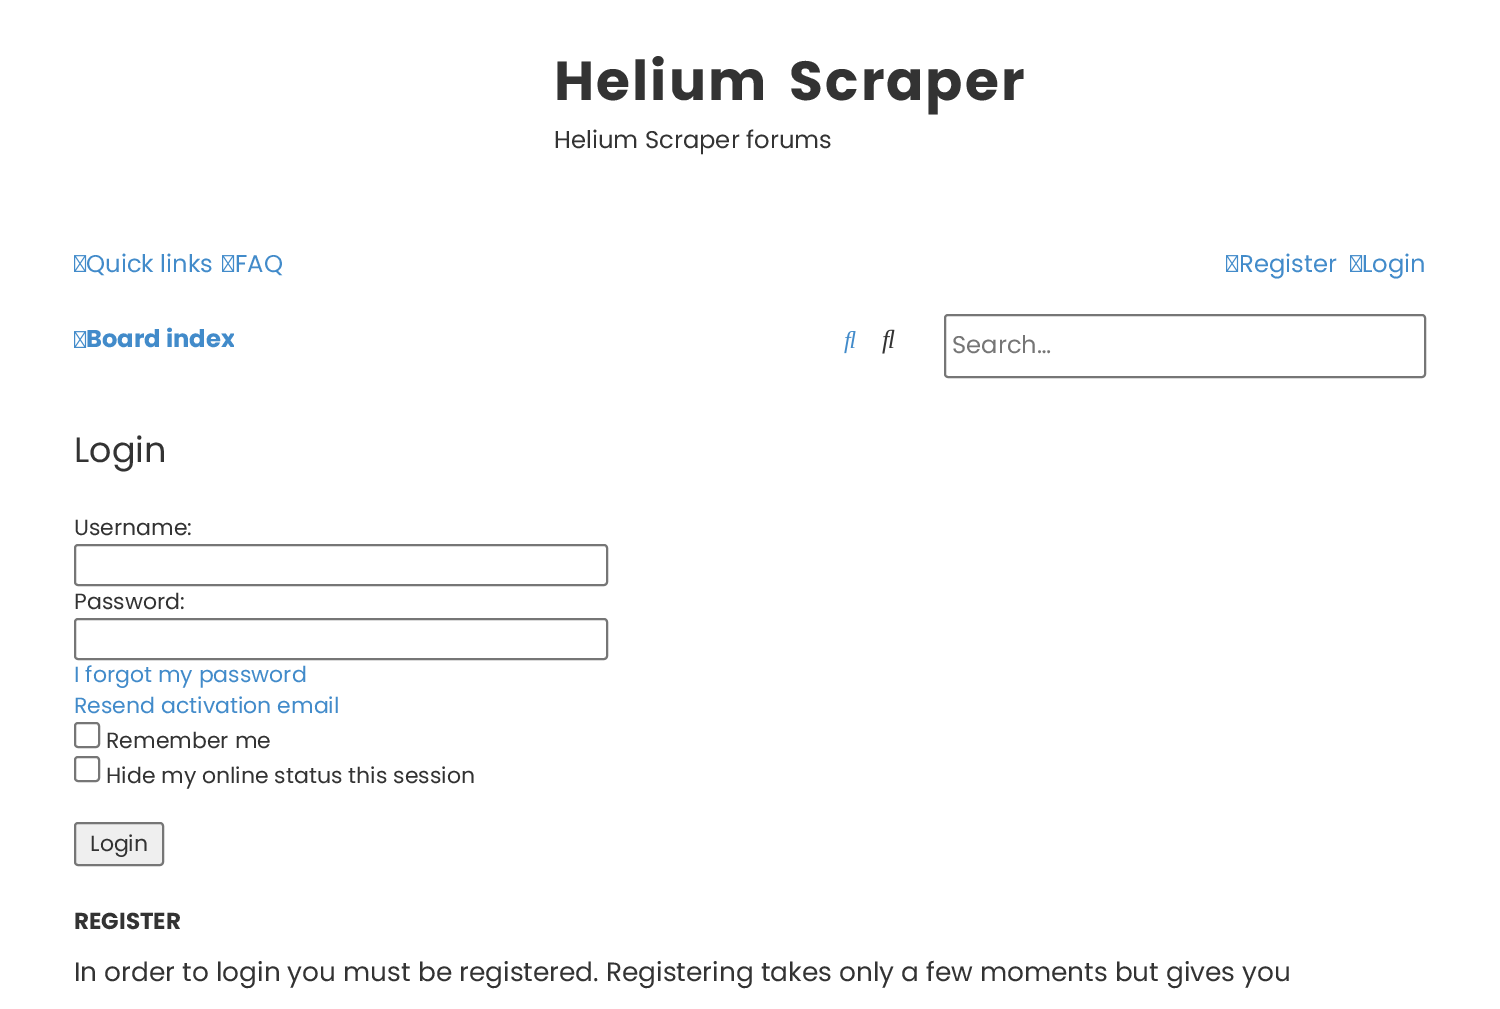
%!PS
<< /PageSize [1500 1009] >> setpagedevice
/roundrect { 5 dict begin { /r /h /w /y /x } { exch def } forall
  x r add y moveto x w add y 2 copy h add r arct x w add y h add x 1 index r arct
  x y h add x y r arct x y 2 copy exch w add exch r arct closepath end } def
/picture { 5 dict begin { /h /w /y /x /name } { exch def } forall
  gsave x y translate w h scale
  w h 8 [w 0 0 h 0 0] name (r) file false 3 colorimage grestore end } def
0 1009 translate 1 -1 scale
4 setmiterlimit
1 setgray
0 0 1500 1009 rectfill
/Poppins-Bold [55 0 0 -55 0 0] selectfont
0.2 setgray
554 100 moveto 8 0 32 2 0 (Helium Scraper) awidthshow
/Poppins-Regular [24.25 0 0 -24.25 0 0] selectfont
554 148 moveto (Helium Scraper forums) show
(img1.rgb) 74 255 13 17 picture
0.259 0.545 0.792 setrgbcolor
86 272 moveto (Quick links) show
(img1.rgb) 222 255 13 17 picture
235 272 moveto (FAQ) show
(img1.rgb) 1226 255 13 17 picture
1239 272 moveto (Register) show
(img1.rgb) 1350 255 13 17 picture
1362 272 moveto (Login) show
(img1.rgb) 74 331 13 17 picture
gsave
74 314 160 52 rectclip
/Poppins-Bold [24.25 0 0 -24.25 0 0] selectfont
86 347 moveto (Board index) show
grestore
(img2.rgb) 844 331 12 23 picture
(img3.rgb) 882 329 13 25 picture
0.463 setgray
2 setlinewidth
945 315 480 62 3 roundrect stroke
0.459 setgray
952 353 moveto (Search…) show
/Poppins-Regular [35 0 0 -35 0 0] selectfont
0.2 setgray
74 462 moveto (Login) show
/Poppins-Regular [22 0 0 -22 0 0] selectfont
74 535 moveto (Username:) show
0.463 setgray
75 545 532 40 3 roundrect stroke
0.2 setgray
74 609 moveto (Password:) show
0.463 setgray
75 619 532 40 3 roundrect stroke
0.259 0.545 0.792 setrgbcolor
74 682 moveto (I forgot my password) show
74 713 moveto (Resend activation email) show
0.463 setgray
75 723 24 24 3 roundrect stroke
0.2 setgray
106 748 moveto (Remember me) show
0.463 setgray
75 757 24 24 3 roundrect stroke
0.2 setgray
106 783 moveto (Hide my online status this session) show
0.937 setgray
75 823 88 42 3 roundrect gsave fill grestore
0.463 setgray
stroke
0.2 setgray
90 851 moveto (Login) show
/Poppins-Bold [23 0 0 -23 0 0] selectfont
74 929 moveto (REGISTER) show
/Poppins-Regular [26.4 0 0 -26.4 0 0] selectfont
74 981 moveto (In order to login you must be registered. Registering takes only a few moments but gives you) show
showpage
